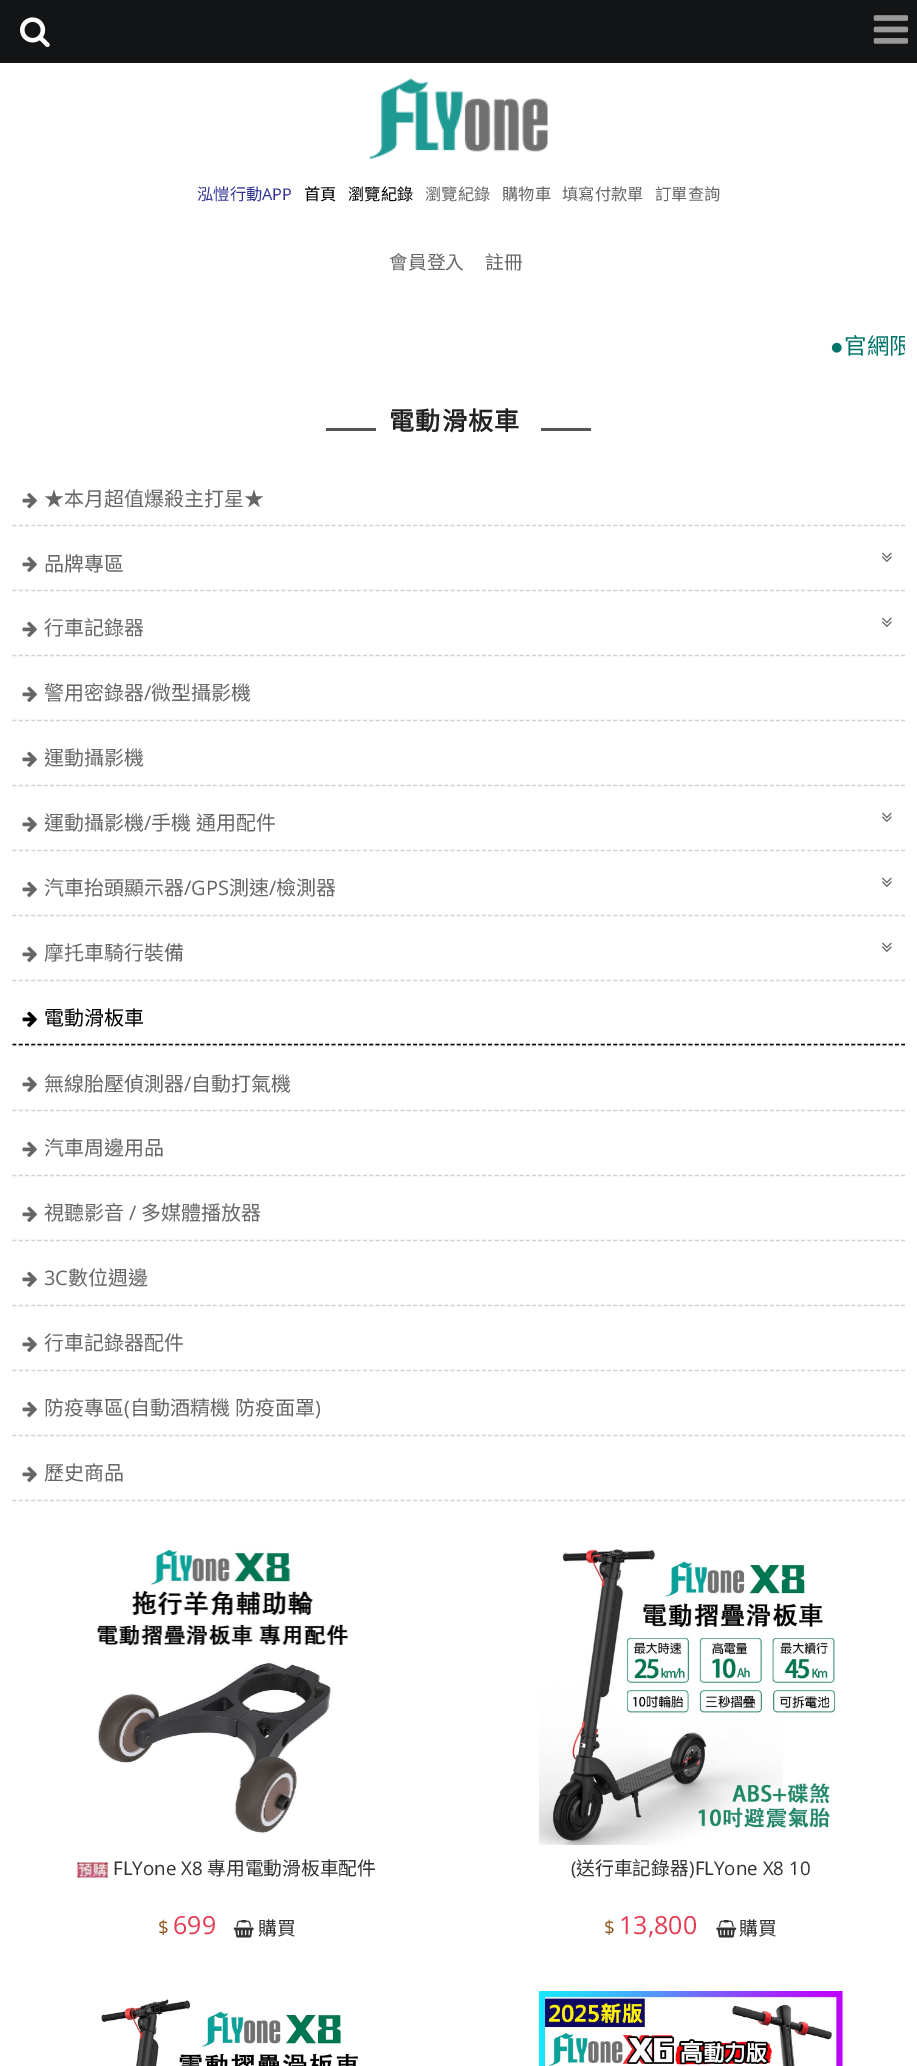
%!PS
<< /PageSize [917 2066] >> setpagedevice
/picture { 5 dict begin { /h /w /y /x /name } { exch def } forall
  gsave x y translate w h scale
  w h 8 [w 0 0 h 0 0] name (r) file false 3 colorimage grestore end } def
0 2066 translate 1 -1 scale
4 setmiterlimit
1 setgray
0 0 917 2066 rectfill
0.075 0.078 0.082 setrgbcolor
0 0 917 63 rectfill
(img1.rgb) 20 17 30 31 picture
(img2.rgb) 873 15 36 29 picture
(img3.rgb) 369 78 179 81 picture
/NotoSansCJKTC-Regular [16.25 0 0 -16.25 0 0] selectfont
0.184 0.192 0.573 setrgbcolor
197 200 moveto (泓愷行動) show
/OpenSans-Regular [16.25 0 0 -16.25 0 0] selectfont
262 200 moveto (APP) show
/NotoSansCJKTC-Regular [16.25 0 0 -16.25 0 0] selectfont
0 setgray
304 200 moveto (首頁) show
348 200 moveto (瀏覽紀錄) show
0.4 setgray
425 200 moveto (瀏覽紀錄) show
502 200 moveto (購物車) show
562 200 moveto (填寫付款單) show
655 200 moveto (訂單查詢) show
/NotoSansCJKTC-Regular [18.75 0 0 -18.75 0 0] selectfont
389 269 moveto (會員登入) show
485 269 moveto (註冊) show
/LiberationSans-Regular [22.5 0 0 -22.5 0 0] selectfont
0 0.451 0.416 setrgbcolor
830 354 moveto (●) show
gsave
13 326 892 40 rectclip
/NotoSansCJKTC-Regular [22.5 0 0 -22.5 0 0] selectfont
844 354 moveto (官網限) show
grestore
0.333 setgray
326 428 50 3 rectfill
/NotoSansCJKTC-Bold [25 0 0 -25 0 0] selectfont
0.133 setgray
389 430 moveto 1.25 0 (電動滑板車) ashow
0.333 setgray
541 428 50 3 rectfill
0.824 setgray
1.2 setlinewidth
[3.75 2.51] 0 setdash
newpath 12.5 525.5 moveto 905 525.5 lineto stroke
(img4.rgb) 22 493 15 16 picture
/NotoSansCJKTC-Regular [20 0 0 -20 0 0] selectfont
0.4 setgray
44 506 moveto (★本月超值爆殺主打星★) show
0.824 setgray
newpath 12.5 590.5 moveto 905 590.5 lineto stroke
(img5.rgb) 22 556 15 16 picture
0.4 setgray
44 571 moveto (品牌專區) show
(img6.rgb) 882 552 10 10 picture
0.824 setgray
newpath 12.5 655.5 moveto 905 655.5 lineto stroke
(img5.rgb) 22 621 15 16 picture
0.4 setgray
44 635 moveto (行車記錄器) show
(img6.rgb) 882 617 10 10 picture
0.824 setgray
newpath 12.5 720.5 moveto 905 720.5 lineto stroke
(img5.rgb) 22 686 15 16 picture
0.4 setgray
44 700 moveto (警用密錄器) show
/OpenSans-Regular [20 0 0 -20 0 0] selectfont
144 700 moveto (/) show
/NotoSansCJKTC-Regular [20 0 0 -20 0 0] selectfont
151 700 moveto (微型攝影機) show
0.824 setgray
newpath 12.5 785.5 moveto 905 785.5 lineto stroke
(img5.rgb) 22 751 15 16 picture
0.4 setgray
44 765 moveto (運動攝影機) show
0.824 setgray
newpath 12.5 850.5 moveto 905 850.5 lineto stroke
(img5.rgb) 22 816 15 16 picture
0.4 setgray
44 830 moveto (運動攝影機) show
/OpenSans-Regular [20 0 0 -20 0 0] selectfont
144 830 moveto (/) show
/NotoSansCJKTC-Regular [20 0 0 -20 0 0] selectfont
151 830 moveto 1 0 32 (手機 通用配件) widthshow
(img6.rgb) 882 812 10 10 picture
0.824 setgray
newpath 12.5 915.5 moveto 905 915.5 lineto stroke
(img5.rgb) 22 881 15 16 picture
0.4 setgray
44 895 moveto (汽車抬頭顯示器) show
/OpenSans-Regular [20 0 0 -20 0 0] selectfont
184 895 moveto (/GPS) show
/NotoSansCJKTC-Regular [20 0 0 -20 0 0] selectfont
229 895 moveto (測速) show
/OpenSans-Regular [20 0 0 -20 0 0] selectfont
269 895 moveto (/) show
/NotoSansCJKTC-Regular [20 0 0 -20 0 0] selectfont
276 895 moveto (檢測器) show
(img6.rgb) 882 877 10 10 picture
0.824 setgray
newpath 12.5 980.5 moveto 905 980.5 lineto stroke
(img5.rgb) 22 946 15 16 picture
0.4 setgray
44 960 moveto (摩托車騎行裝備) show
(img6.rgb) 882 942 10 10 picture
0.824 setgray
newpath 12.5 1045.5 moveto 905 1045.5 lineto stroke
0 setgray
newpath 12.5 1044.5 moveto 905 1044.5 lineto stroke
(img7.rgb) 22 1011 15 16 picture
44 1025 moveto (電動滑板車) show
0.824 setgray
newpath 12.5 1110.5 moveto 905 1110.5 lineto stroke
(img5.rgb) 22 1076 15 16 picture
0.4 setgray
44 1091 moveto (無線胎壓偵測器) show
/OpenSans-Regular [20 0 0 -20 0 0] selectfont
184 1091 moveto (/) show
/NotoSansCJKTC-Regular [20 0 0 -20 0 0] selectfont
191 1091 moveto (自動打氣機) show
0.824 setgray
newpath 12.5 1175.5 moveto 905 1175.5 lineto stroke
(img5.rgb) 22 1141 15 16 picture
0.4 setgray
44 1155 moveto (汽車周邊用品) show
0.824 setgray
newpath 12.5 1240.5 moveto 905 1240.5 lineto stroke
(img5.rgb) 22 1206 15 16 picture
0.4 setgray
44 1220 moveto (視聽影音) show
/OpenSans-Regular [20 0 0 -20 0 0] selectfont
129 1220 moveto (/) show
/NotoSansCJKTC-Regular [20 0 0 -20 0 0] selectfont
141 1220 moveto (多媒體播放器) show
0.824 setgray
newpath 12.5 1305.5 moveto 905 1305.5 lineto stroke
(img5.rgb) 22 1271 15 16 picture
/OpenSans-Regular [20 0 0 -20 0 0] selectfont
0.4 setgray
44 1285 moveto (3C) show
/NotoSansCJKTC-Regular [20 0 0 -20 0 0] selectfont
68 1285 moveto (數位週邊) show
0.824 setgray
newpath 12.5 1370.5 moveto 905 1370.5 lineto stroke
(img5.rgb) 22 1336 15 16 picture
0.4 setgray
44 1350 moveto (行車記錄器配件) show
0.824 setgray
newpath 12.5 1435.5 moveto 905 1435.5 lineto stroke
(img5.rgb) 22 1401 15 16 picture
0.4 setgray
44 1415 moveto (防疫專區) show
/OpenSans-Regular [20 0 0 -20 0 0] selectfont
124 1415 moveto (\() show
/NotoSansCJKTC-Regular [20 0 0 -20 0 0] selectfont
130 1415 moveto 1 0 32 (自動酒精機 防疫面罩) widthshow
/OpenSans-Regular [20 0 0 -20 0 0] selectfont
315 1415 moveto (\)) show
0.824 setgray
newpath 12.5 1500.5 moveto 905 1500.5 lineto stroke
(img5.rgb) 22 1466 15 16 picture
/NotoSansCJKTC-Regular [20 0 0 -20 0 0] selectfont
0.4 setgray
44 1480 moveto (歷史商品) show
(img8.rgb) 96 1547 252 287 picture
(img9.rgb) 76 1862 32 16 picture
/OpenSans-Regular [18.75 0 0 -18.75 0 0] selectfont
0.2 setgray
113 1875 moveto (FLYone X8) show
/NotoSansCJKTC-Regular [18.75 0 0 -18.75 0 0] selectfont
207 1875 moveto (專用電動滑板車配件) show
/OpenSans-Regular [18.75 0 0 -18.75 0 0] selectfont
0.557 0.333 0.09 setrgbcolor
158 1934 moveto ($) show
/OpenSans-Regular [25 0 0 -25 0 0] selectfont
0.894 0.235 0.329 setrgbcolor
173 1934 moveto (699) show
(img10.rgb) 233 1920 21 18 picture
/NotoSansCJKTC-Regular [18.75 0 0 -18.75 0 0] selectfont
0.2 setgray
258 1935 moveto (購買) show
(img11.rgb) 539 1546 297 299 picture
/OpenSans-Regular [18.75 0 0 -18.75 0 0] selectfont
571 1875 moveto (\() show
/NotoSansCJKTC-Regular [18.75 0 0 -18.75 0 0] selectfont
576 1875 moveto (送行車記錄器) show
/OpenSans-Regular [18.75 0 0 -18.75 0 0] selectfont
689 1875 moveto (\)FLYone X8 10) show
0.557 0.333 0.09 setrgbcolor
604 1934 moveto ($) show
/OpenSans-Regular [25 0 0 -25 0 0] selectfont
0.894 0.235 0.329 setrgbcolor
619 1934 moveto (13,800) show
(img12.rgb) 716 1920 21 18 picture
/NotoSansCJKTC-Regular [18.75 0 0 -18.75 0 0] selectfont
0.2 setgray
739 1935 moveto (購買) show
(img13.rgb) 101 1999 257 67 picture
(img14.rgb) 538 1991 305 75 picture
showpage
